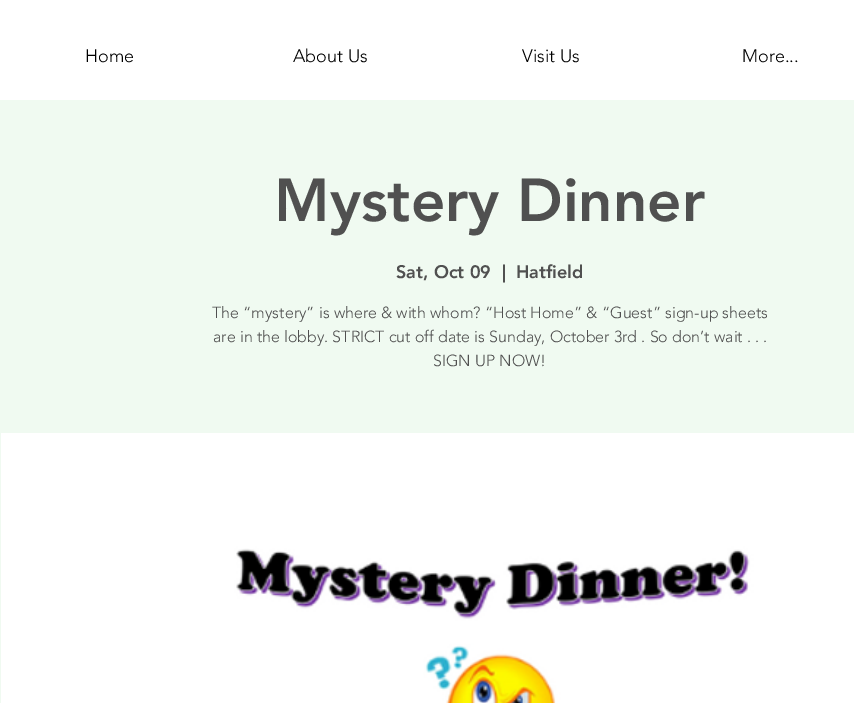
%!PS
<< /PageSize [854 703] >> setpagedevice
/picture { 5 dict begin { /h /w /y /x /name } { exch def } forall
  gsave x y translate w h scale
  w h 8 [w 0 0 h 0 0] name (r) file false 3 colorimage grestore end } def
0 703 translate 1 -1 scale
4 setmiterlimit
0.941 0.98 0.945 setrgbcolor
0 0 854 703 rectfill
1 setgray
0 0 854 100 rectfill
/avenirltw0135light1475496-Light [18 0 0 -18 0 0] selectfont
0 setgray
85 62 moveto (Home) show
293 62 moveto (About Us) show
522 62 moveto (Visit Us) show
742 62 moveto (More...) show
/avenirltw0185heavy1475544-Black [60 0 0 -60 0 0] selectfont
0.314 setgray
274 221 moveto (Mystery Dinner) show
/avenirltw0185heavy1475544-Black [18 0 0 -18 0 0] selectfont
396 278 moveto (Sat, Oct 09) show
502 278 moveto (|) show
516 278 moveto (Hatfield) show
/avenirltw0135light1475496-Light [16 0 0 -16 0 0] selectfont
212 318 moveto (The “mystery” is where & with whom? “Host Home” & “Guest” sign-up sheets) show
213 342 moveto (are in the lobby. STRICT cut off date is Sunday, October 3rd . So don’t wait . . .) show
433 366 moveto (SIGN UP NOW!) show
(img1.rgb) 1 433 853 270 picture
showpage
